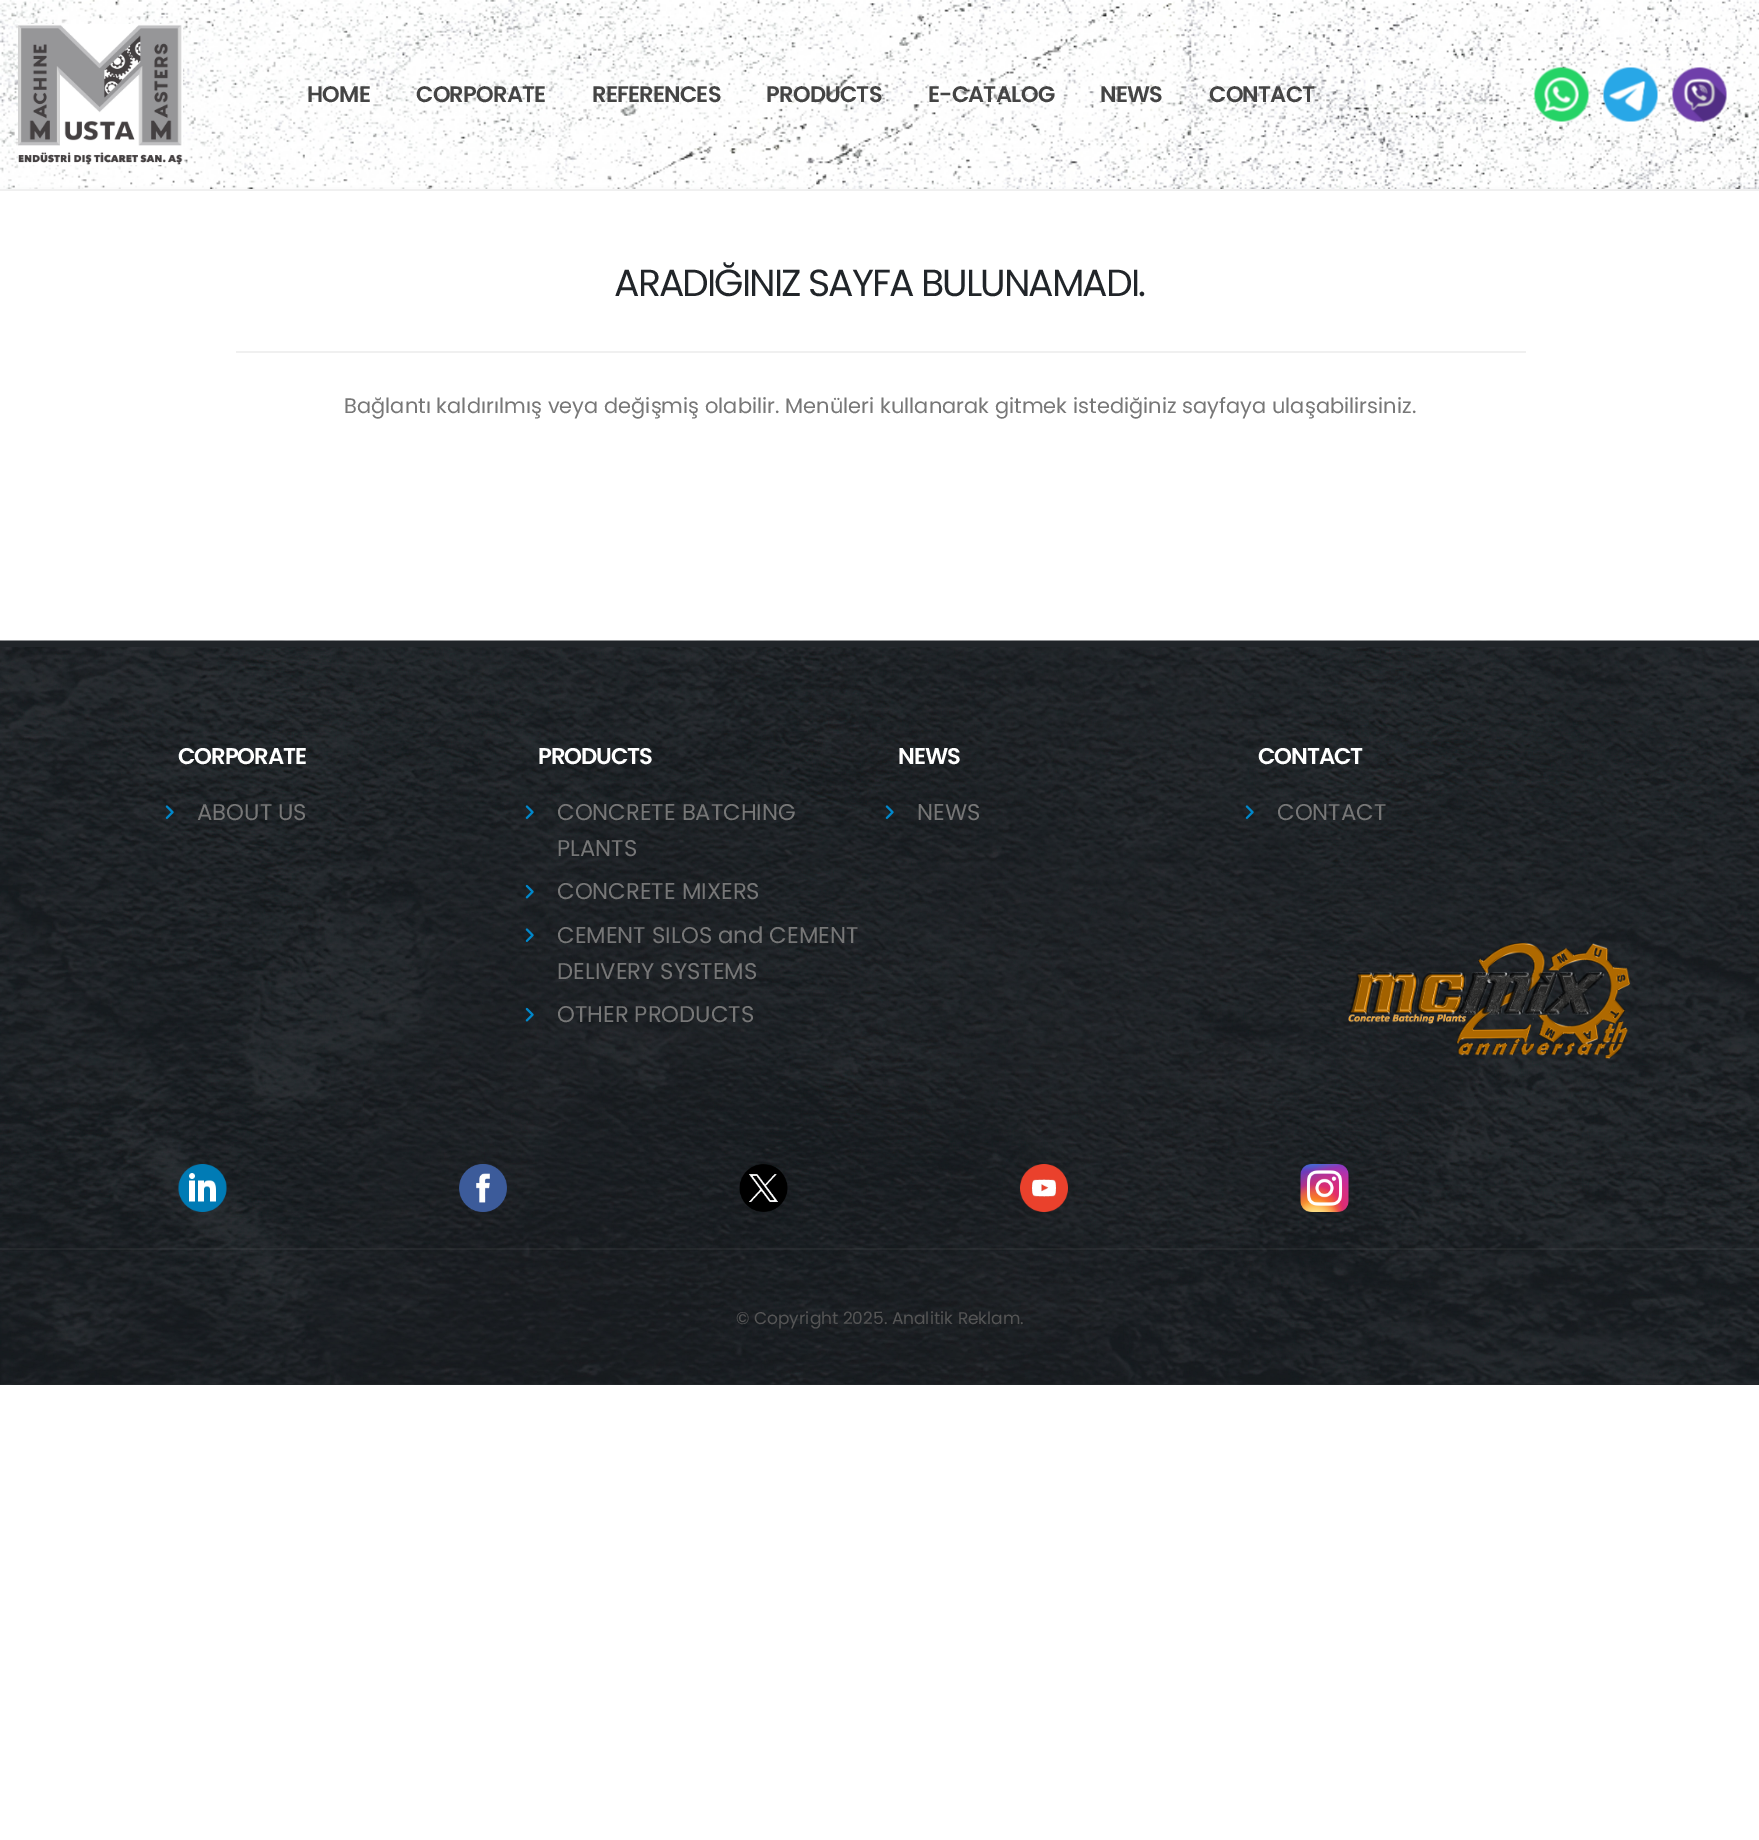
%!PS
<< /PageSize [1759 1840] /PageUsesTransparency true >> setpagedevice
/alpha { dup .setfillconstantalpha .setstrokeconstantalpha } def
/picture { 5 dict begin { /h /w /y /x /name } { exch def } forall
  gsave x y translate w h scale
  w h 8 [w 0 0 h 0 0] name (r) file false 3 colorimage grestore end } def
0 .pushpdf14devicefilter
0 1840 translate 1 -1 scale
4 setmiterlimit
1 setgray
0 0 1759 1840 rectfill
0.941 setgray
0 189 1759 2 rectfill
(img1.rgb) 0 0 1759 189 picture
(img2.rgb) 18 24 165 141 picture
/Poppins-SemiBold [22.5 0 0 -22.5 0 0] selectfont
0.267 setgray
307 102 moveto -0.75 0 (HOME) ashow
416 102 moveto -0.75 0 (CORPORATE) ashow
592 102 moveto -0.75 0 (REFERENCES) ashow
766 102 moveto -0.75 0 (PRODUCTS) ashow
928 102 moveto -0.75 0 (E-CATALOG) ashow
1100 102 moveto -0.75 0 (NEWS) ashow
1209 102 moveto -0.75 0 (CONTACT) ashow
(img3.rgb) 1534 67 55 55 picture
(img4.rgb) 1603 67 55 55 picture
(img5.rgb) 1672 67 55 55 picture
/Poppins-Regular [37.75 0 0 -37.75 0 0] selectfont
0.129 0.145 0.161 setrgbcolor
614 296 moveto -1.9 0 (ARADIĞINIZ SAYFA BULUNAMADI.) ashow
0.941 setgray
236 351 1290 2 rectfill
/Poppins-Regular [21 0 0 -21 0 0] selectfont
0.467 setgray
344 413 moveto (Bağlantı kaldırılmış veya değişmiş olabilir. Menüleri kullanarak gitmek istediğiniz sayfaya ulaşabilirsiniz.) show
0.129 0.145 0.161 setrgbcolor
0 1384 1759 1 rectfill
(img6.rgb) 0 640 1759 745 picture
0 641 1759 6 rectfill
/Poppins-SemiBold [22.75 0 0 -22.75 0 0] selectfont
1 setgray
178 764 moveto -1.1 0 (CORPORATE) ashow
(img7.rgb) 165 805 9 14 picture
/Poppins-Regular [22.75 0 0 -22.75 0 0] selectfont
0.467 setgray
197 820 moveto (ABOUT US) show
/Poppins-SemiBold [22.75 0 0 -22.75 0 0] selectfont
1 setgray
538 764 moveto -1.1 0 (PRODUCTS) ashow
(img8.rgb) 525 805 9 14 picture
/Poppins-Regular [22.75 0 0 -22.75 0 0] selectfont
0.467 setgray
557 820 moveto (CONCRETE BATCHING) show
557 856 moveto (PLANTS) show
(img9.rgb) 525 884 9 15 picture
557 899 moveto (CONCRETE MIXERS) show
(img10.rgb) 525 928 9 14 picture
557 943 moveto (CEMENT SILOS and CEMENT) show
557 979 moveto (DELIVERY SYSTEMS) show
(img11.rgb) 525 1007 9 15 picture
557 1022 moveto (OTHER PRODUCTS) show
/Poppins-SemiBold [22.75 0 0 -22.75 0 0] selectfont
1 setgray
898 764 moveto -1.1 0 (NEWS) ashow
(img12.rgb) 885 805 9 14 picture
/Poppins-Regular [22.75 0 0 -22.75 0 0] selectfont
0.467 setgray
917 820 moveto (NEWS) show
/Poppins-SemiBold [22.75 0 0 -22.75 0 0] selectfont
1 setgray
1258 764 moveto -1.1 0 (CONTACT) ashow
(img13.rgb) 1245 805 9 14 picture
/Poppins-Regular [22.75 0 0 -22.75 0 0] selectfont
0.467 setgray
1277 820 moveto (CONTACT) show
(img14.rgb) 1348 942 283 117 picture
(img15.rgb) 178 1164 49 48 picture
(img16.rgb) 459 1164 48 48 picture
(img17.rgb) 739 1164 49 48 picture
(img18.rgb) 1020 1164 48 48 picture
(img19.rgb) 1300 1164 49 48 picture
0.05 alpha
1 setgray
0 1248 1759 2 rectfill
/Poppins-Regular [17 0 0 -17 0 0] selectfont
1 alpha
0.333 setgray
736 1324 moveto (© Copyright 2025. Analitik Reklam.) show
.poppdf14devicefilter showpage
